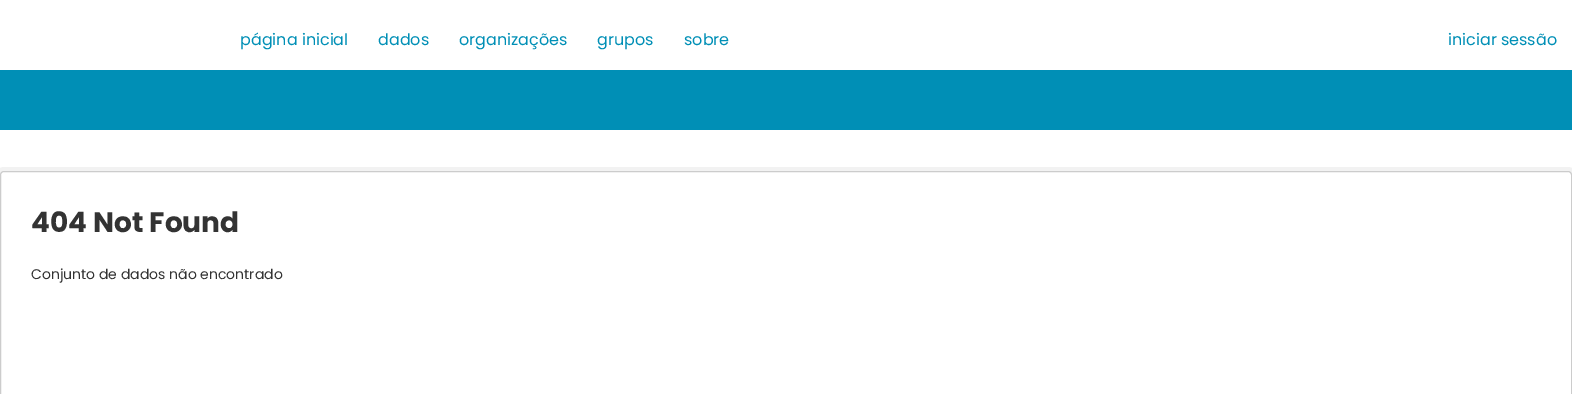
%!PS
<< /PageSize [1572 394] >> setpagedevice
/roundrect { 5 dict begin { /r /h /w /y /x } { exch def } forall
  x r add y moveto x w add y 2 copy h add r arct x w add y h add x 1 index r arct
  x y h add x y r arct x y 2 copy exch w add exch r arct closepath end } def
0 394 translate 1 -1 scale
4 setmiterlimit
1 setgray
0 0 1572 394 rectfill
0 0.561 0.714 setrgbcolor
0 70 1572 60 rectfill
/Poppins-Regular [16 0 0 -16 0 0] selectfont
240 45 moveto (página inicial) show
378 45 moveto (dados) show
459 45 moveto (organizações) show
597 45 moveto (grupos) show
684 45 moveto (sobre) show
1448 45 moveto (iniciar sessão) show
0.949 setgray
4 setlinewidth
-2 169 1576 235 6 roundrect stroke
1 setgray
0.5 171.5 1571 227 3.5 roundrect gsave fill grestore
0.8 setgray
1 setlinewidth
stroke
/Poppins-Bold [28 0 0 -28 0 0] selectfont
0.2 setgray
31 232 moveto (404 Not Found) show
/Poppins-Regular [14 0 0 -14 0 0] selectfont
31 279 moveto (Conjunto de dados não encontrado) show
showpage
